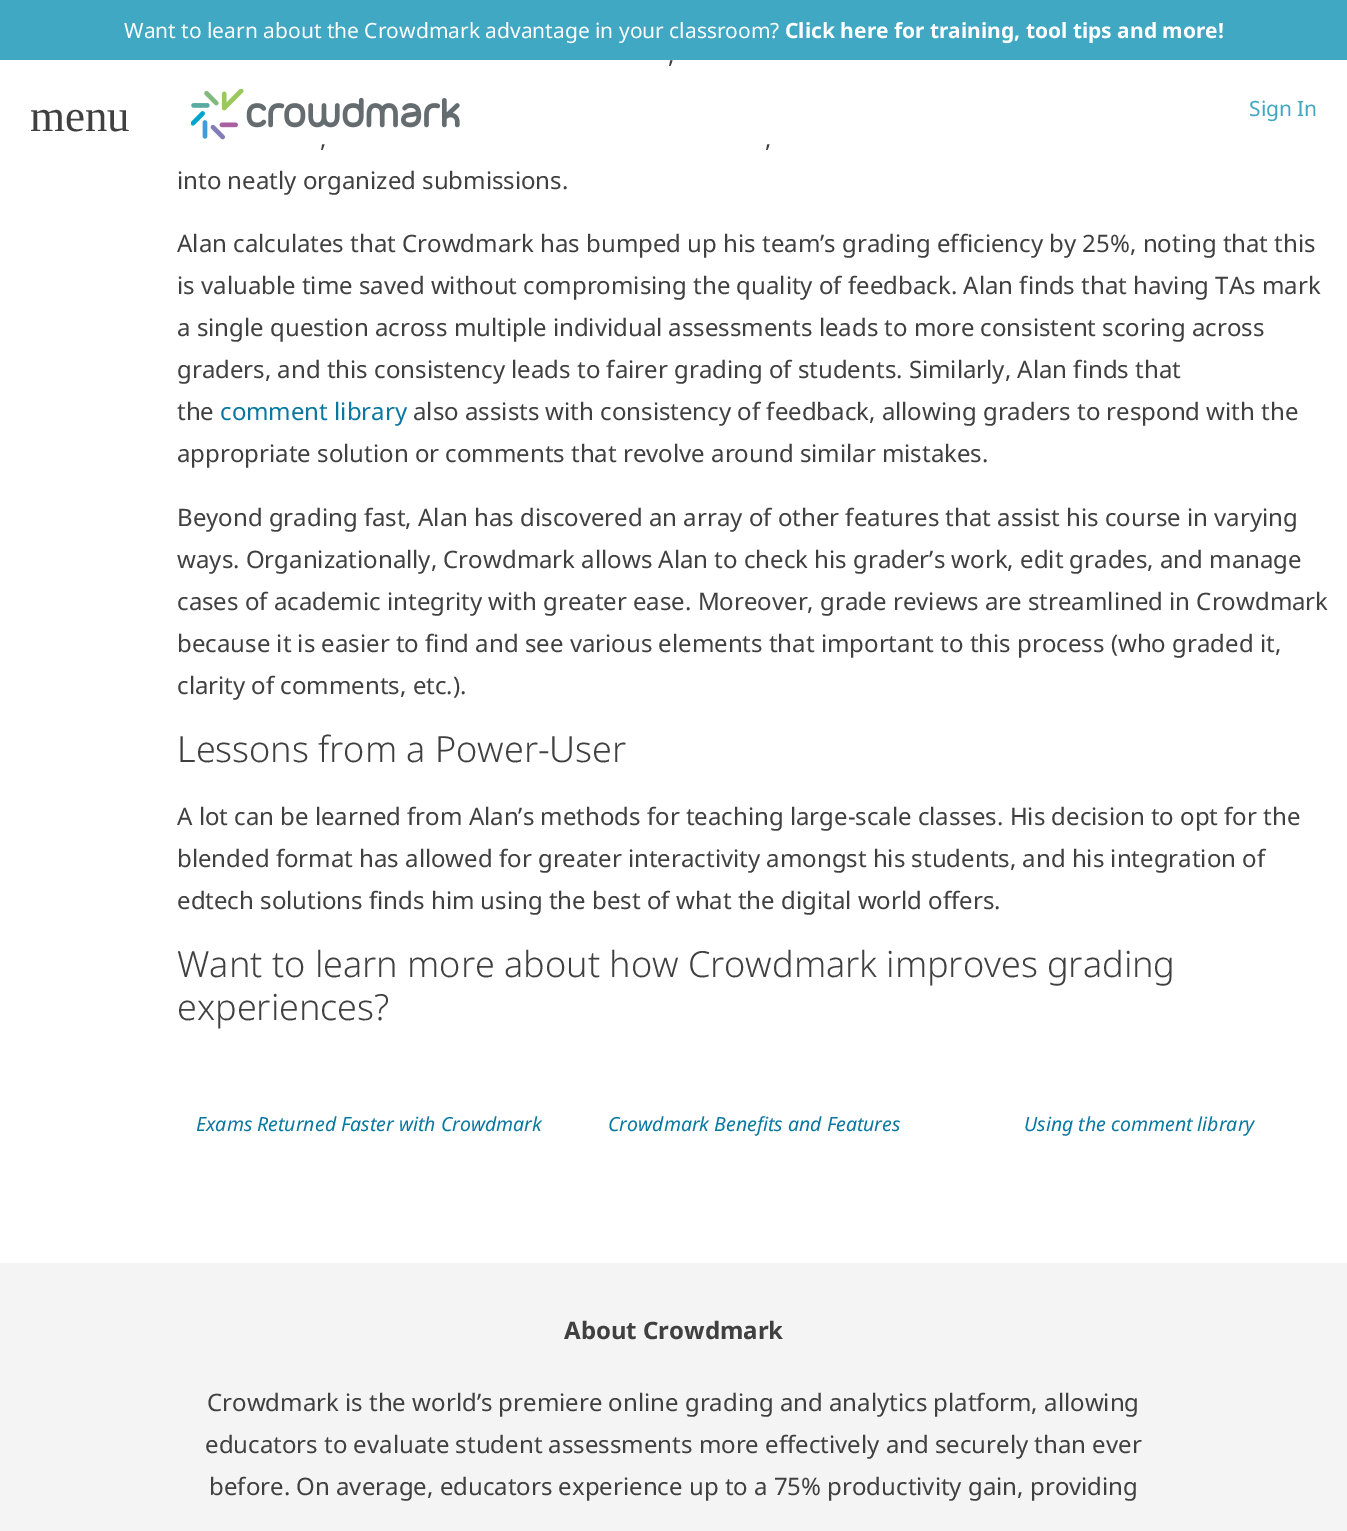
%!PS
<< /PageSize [1347 1531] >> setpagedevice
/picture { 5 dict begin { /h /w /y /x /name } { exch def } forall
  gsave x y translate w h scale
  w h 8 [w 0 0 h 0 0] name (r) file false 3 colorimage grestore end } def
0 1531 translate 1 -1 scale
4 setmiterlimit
1 setgray
0 0 1347 1531 rectfill
0.251 0.659 0.765 setrgbcolor
0 0 1347 60 rectfill
/NotoSans-Regular [21 0 0 -21 0 0] selectfont
1 setgray
124 38 moveto (Want to learn about the Crowdmark advantage in your classroom?) show
/NotoSans-Bold [21 0 0 -21 0 0] selectfont
785 38 moveto (Click here for training, tool tips and more!) show
/LiberationSerif-Regular [45 0 0 -45 0 0] selectfont
0.251 setgray
30 131 moveto (menu) show
(img1.rgb) 191 89 269 51 picture
/NotoSans-Regular [21 0 0 -21 0 0] selectfont
0.251 0.659 0.765 setrgbcolor
1249 116 moveto (Sign In) show
/NotoSans-Regular [24 0 0 -24 0 0] selectfont
0.251 setgray
668 63 moveto (,) show
320 147 moveto (,) show
765 147 moveto (,) show
177 189 moveto (into neatly organized submissions.) show
177 252 moveto (Alan calculates that Crowdmark has bumped up his team’s grading efficiency by 25%, noting that this) show
177 294 moveto (is valuable time saved without compromising the quality of feedback. Alan finds that having TAs mark) show
177 336 moveto (a single question across multiple individual assessments leads to more consistent scoring across) show
177 378 moveto (graders, and this consistency leads to fairer grading of students. Similarly, Alan finds that) show
177 420 moveto (the) show
0.031 0.471 0.631 setrgbcolor
220 420 moveto (comment library) show
0.251 setgray
413 420 moveto (also assists with consistency of feedback, allowing graders to respond with the) show
177 462 moveto (appropriate solution or comments that revolve around similar mistakes.) show
177 526 moveto (Beyond grading fast, Alan has discovered an array of other features that assist his course in varying) show
177 568 moveto (ways. Organizationally, Crowdmark allows Alan to check his grader’s work, edit grades, and manage) show
177 610 moveto (cases of academic integrity with greater ease. Moreover, grade reviews are streamlined in Crowdmark) show
177 652 moveto (because it is easier to find and see various elements that important to this process \(who graded it,) show
177 694 moveto (clarity of comments, etc.\).) show
/NotoSans-Light [36 0 0 -36 0 0] selectfont
177 762 moveto (Lessons from a Power-User) show
/NotoSans-Regular [24 0 0 -24 0 0] selectfont
177 825 moveto (A lot can be learned from Alan’s methods for teaching large-scale classes. His decision to opt for the) show
177 867 moveto (blended format has allowed for greater interactivity amongst his students, and his integration of) show
177 909 moveto (edtech solutions finds him using the best of what the digital world offers.) show
/NotoSans-Light [36 0 0 -36 0 0] selectfont
177 977 moveto (Want to learn more about how Crowdmark improves grading) show
177 1020 moveto (experiences?) show
/NotoSans-Italic [19.5 0 0 -19.5 0 0] selectfont
0.031 0.471 0.631 setrgbcolor
196 1131 moveto (Exams Returned Faster with Crowdmark) show
608 1131 moveto (Crowdmark Benefits and Features) show
1024 1131 moveto (Using the comment library) show
0.957 setgray
0 1263 1347 268 rectfill
/NotoSans-Bold [24 0 0 -24 0 0] selectfont
0.251 setgray
564 1339 moveto (About Crowdmark) show
/NotoSans-Regular [24 0 0 -24 0 0] selectfont
207 1411 moveto (Crowdmark is the world’s premiere online grading and analytics platform, allowing) show
205 1453 moveto (educators to evaluate student assessments more effectively and securely than ever) show
209 1495 moveto (before. On average, educators experience up to a 75% productivity gain, providing) show
showpage
